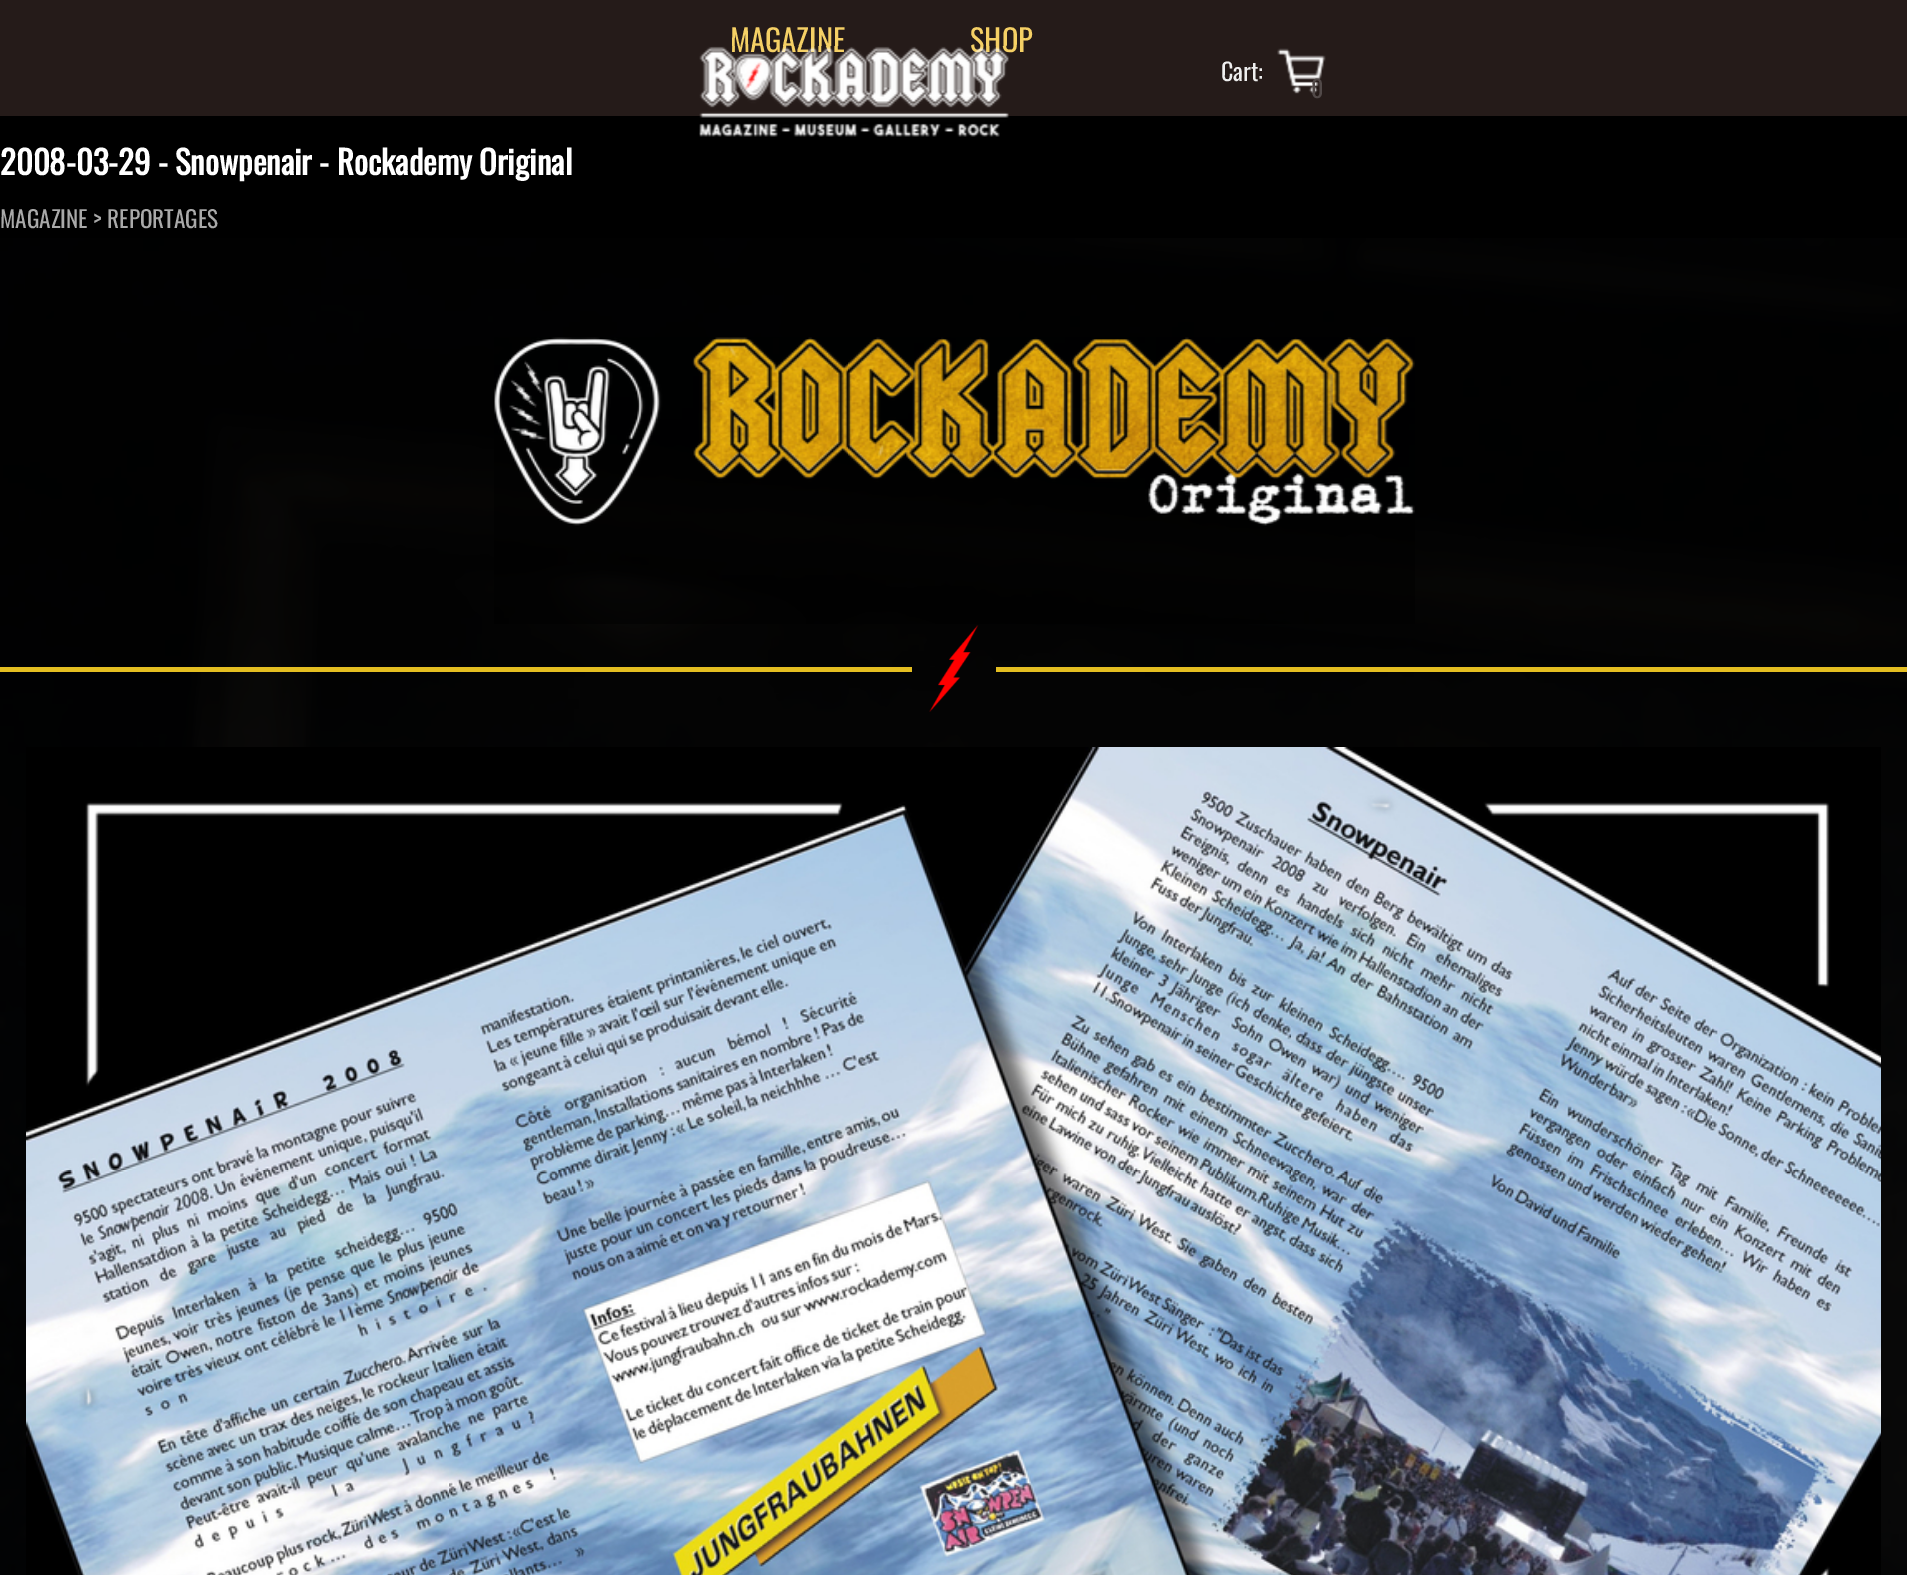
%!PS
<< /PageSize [1907 1575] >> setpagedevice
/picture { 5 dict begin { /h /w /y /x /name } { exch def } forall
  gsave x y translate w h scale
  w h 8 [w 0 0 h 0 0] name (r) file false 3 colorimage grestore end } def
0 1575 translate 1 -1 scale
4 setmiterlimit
0.145 0.106 0.098 setrgbcolor
0 0 1907 1575 rectfill
/Oswald-Regular [30.5 0 0 -30.5 0 0] selectfont
0.961 0.816 0.396 setrgbcolor
730 52 moveto (MAGAZINE) show
970 52 moveto (SHOP) show
0 setgray
0 116 1907 1459 rectfill
(img1.rgb) 699 46 310 91 picture
/Oswald-Regular [24 0 0 -24 0 0] selectfont
0.937 setgray
1221 81 moveto (Cart:) show
(img2.rgb) 1277 48 49 46 picture
0.318 0.286 0.282 setrgbcolor
1311 98 moveto (0) show
/Oswald-Bold [32.7 0 0 -32.7 0 0] selectfont
1 setgray
0 175 moveto (2008-03-29 - Snowpenair - Rockademy Original) show
/Oswald-Regular [23.25 0 0 -23.25 0 0] selectfont
0.663 setgray
0 228 moveto (MAGAZINE > REPORTAGES) show
(img3.rgb) 0 238 1907 1337 picture
(img4.rgb) 494 337 921 287 picture
0.894 0.745 0.129 setrgbcolor
0 667 912 5 rectfill
(img5.rgb) 929 625 50 87 picture
996 667 911 5 rectfill
(img6.rgb) 26 747 1855 828 picture
showpage
